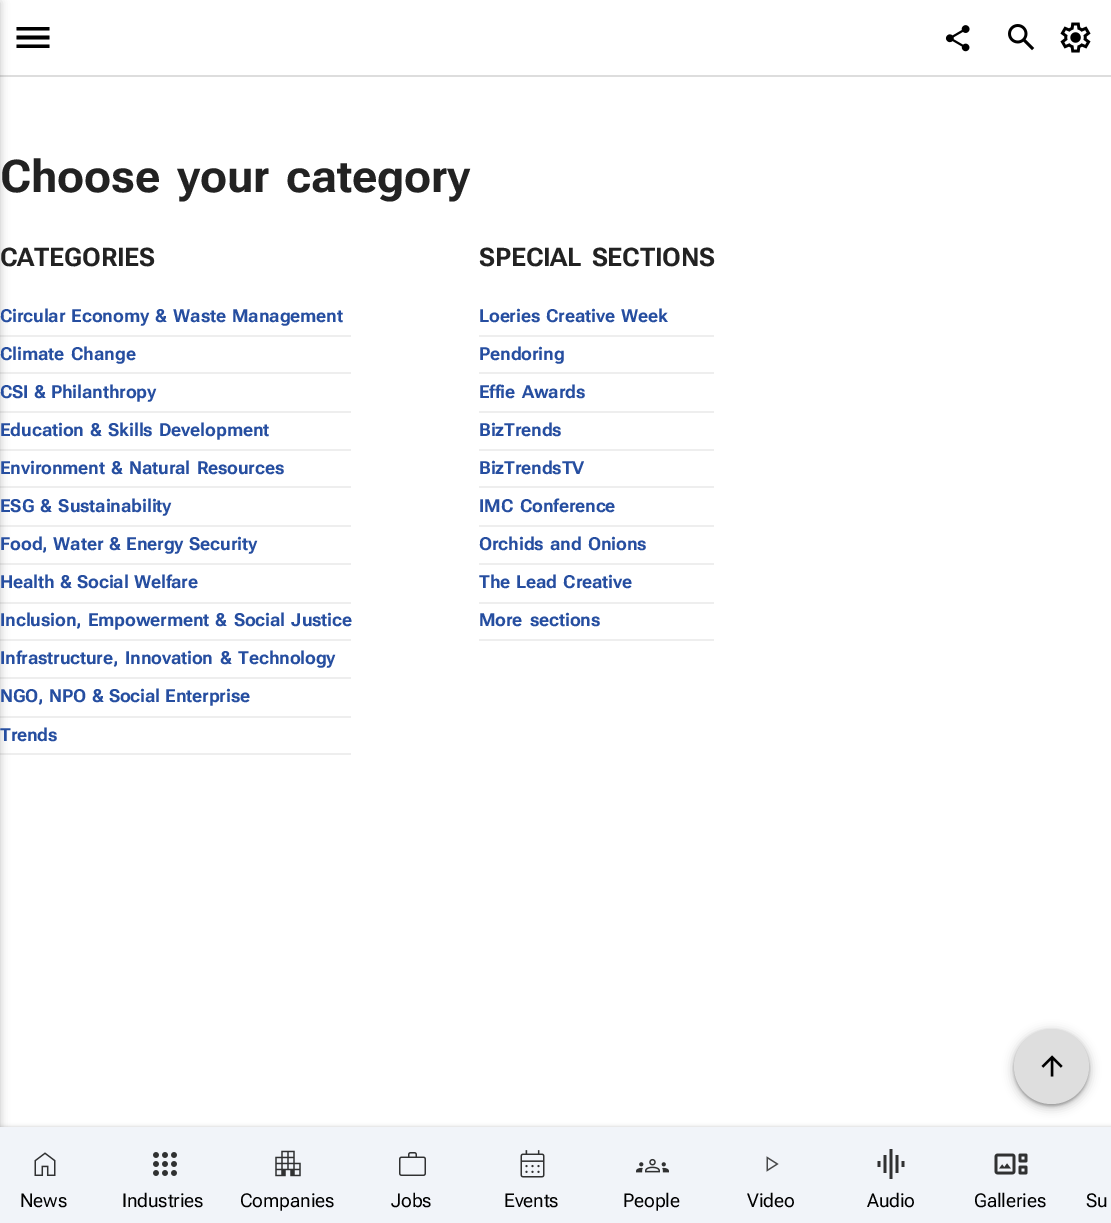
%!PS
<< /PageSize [1111 1223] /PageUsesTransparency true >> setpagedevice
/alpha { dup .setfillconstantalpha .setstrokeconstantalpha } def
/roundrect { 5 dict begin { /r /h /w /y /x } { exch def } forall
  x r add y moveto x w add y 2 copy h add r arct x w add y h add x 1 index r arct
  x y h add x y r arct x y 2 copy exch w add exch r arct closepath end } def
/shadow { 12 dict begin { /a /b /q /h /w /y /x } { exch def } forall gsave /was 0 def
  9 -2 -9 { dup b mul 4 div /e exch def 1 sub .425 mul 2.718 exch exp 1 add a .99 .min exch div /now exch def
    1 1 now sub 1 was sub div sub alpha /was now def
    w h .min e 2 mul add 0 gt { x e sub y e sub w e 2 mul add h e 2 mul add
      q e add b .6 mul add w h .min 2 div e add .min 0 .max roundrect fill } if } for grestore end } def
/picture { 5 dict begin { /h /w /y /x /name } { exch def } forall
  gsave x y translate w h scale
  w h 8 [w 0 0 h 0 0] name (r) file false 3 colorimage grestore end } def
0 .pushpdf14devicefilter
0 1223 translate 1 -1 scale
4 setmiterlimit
1 setgray
0 0 1111 1223 rectfill
0.867 setgray
0 75 1111 2 rectfill
0.933 setgray
0 335 351 2 rectfill
0 372 351 2 rectfill
0 411 351 2 rectfill
0 449 351 2 rectfill
0 486 351 2 rectfill
0 525 351 2 rectfill
0 563 351 2 rectfill
0 602 351 2 rectfill
0 639 351 2 rectfill
0 677 351 2 rectfill
0 716 351 2 rectfill
0 753 351 2 rectfill
0.125 0.129 0.141 setrgbcolor
-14 2 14 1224 0 4.5 0.28 shadow
0 setgray
newpath 16.5 48 moveto 16.5 44.5 lineto 49.5 44.5 lineto 49.5 48 lineto closepath 16.5 39.5 moveto 16.5 35.5 lineto 49.5 35.5 lineto 49.5 39.5 lineto closepath 16.5 30.5 moveto 16.5 27 lineto 49.5 27 lineto 49.5 30.5 lineto closepath fill
(img1.rgb) 945 25 25 27 picture
(img2.rgb) 1008 24 27 27 picture
(img3.rgb) 1060 22 31 31 picture
/RobotoFlex-Bold [45 0 0 -45 0 0] selectfont
0.133 setgray
0 192 moveto 6 0 32 -0.15 0 (Choose your category) awidthshow
/RobotoFlex-Bold [25.5 0 0 -25.5 0 0] selectfont
0 266 moveto -0.15 0 (CATEGORIES) ashow
/RobotoFlex-Bold [18 0 0 -18 0 0] selectfont
0.149 0.306 0.627 setrgbcolor
0 322 moveto 2 0 32 -0.15 0 (Circular Economy & Waste Management) awidthshow
0 360 moveto 3 0 32 -0.15 0 (Climate Change) awidthshow
0 398 moveto 1 0 32 -0.15 0 (CSI & Philanthropy) awidthshow
0 436 moveto 2 0 32 -0.15 0 (Education & Skills Development) awidthshow
0 474 moveto 2 0 32 -0.15 0 (Environment & Natural Resources) awidthshow
0 512 moveto 2 0 32 -0.15 0 (ESG & Sustainability) awidthshow
0 550 moveto 1.5 0 32 -0.15 0 (Food, Water & Energy Security) awidthshow
0 588 moveto 1 0 32 -0.15 0 (Health & Social Welfare) awidthshow
0 626 moveto 2 0 32 -0.15 0 (Inclusion, Empowerment & Social Justice) awidthshow
0 664 moveto 2.5 0 32 -0.15 0 (Infrastructure, Innovation & Technology) awidthshow
0 702 moveto 1 0 32 -0.15 0 (NGO, NPO & Social Enterprise) awidthshow
0 741 moveto -0.15 0 (Trends) ashow
/RobotoFlex-Bold [25.5 0 0 -25.5 0 0] selectfont
0.133 setgray
479 266 moveto 4 0 32 -0.15 0 (SPECIAL SECTIONS) awidthshow
0.933 setgray
479 335 235 2 rectfill
/RobotoFlex-Bold [18 0 0 -18 0 0] selectfont
0.149 0.306 0.627 setrgbcolor
479 322 moveto 2 0 32 -0.15 0 (Loeries Creative Week) awidthshow
0.933 setgray
479 372 235 2 rectfill
0.149 0.306 0.627 setrgbcolor
479 360 moveto -0.15 0 (Pendoring) ashow
0.933 setgray
479 411 235 2 rectfill
0.149 0.306 0.627 setrgbcolor
479 398 moveto 2.5 0 32 -0.15 0 (Effie Awards) awidthshow
0.933 setgray
479 449 235 2 rectfill
0.149 0.306 0.627 setrgbcolor
479 436 moveto -0.15 0 (BizTrends) ashow
0.933 setgray
479 486 235 2 rectfill
0.149 0.306 0.627 setrgbcolor
479 474 moveto -0.15 0 (BizTrendsTV) ashow
0.933 setgray
479 525 235 2 rectfill
0.149 0.306 0.627 setrgbcolor
479 512 moveto 3 0 32 -0.15 0 (IMC Conference) awidthshow
0.933 setgray
479 563 235 2 rectfill
0.149 0.306 0.627 setrgbcolor
479 550 moveto 2 0 32 -0.15 0 (Orchids and Onions) awidthshow
0.933 setgray
479 602 235 2 rectfill
0.149 0.306 0.627 setrgbcolor
479 588 moveto 2 0 32 -0.15 0 (The Lead Creative) awidthshow
0.933 setgray
479 639 235 2 rectfill
0.149 0.306 0.627 setrgbcolor
479 626 moveto 3 0 32 -0.15 0 (More sections) awidthshow
0 setgray
1014 1031 75 75 37.5 1.5 0.3 shadow
1011 1029 81 81 40.5 4.5 0.15 shadow
0.871 setgray
newpath 1051.5 1066.5 37.5 0 360 arc closepath fill
(img4.rgb) 1041 1055 22 22 picture
0 setgray
0 1127 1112 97 0 2 0.2 shadow
0.945 0.957 0.976 setrgbcolor
0 1127 1111 96 rectfill
(img5.rgb) 34 1152 22 24 picture
/RobotoFlex-Regular [19 0 0 -19 0 0] selectfont
0 setgray
20 1207 moveto -0.15 0 (News) ashow
(img6.rgb) 153 1152 24 24 picture
122 1207 moveto -0.15 0 (Industries) ashow
(img7.rgb) 275 1150 26 27 picture
240 1207 moveto -0.15 0 (Companies) ashow
(img8.rgb) 399 1152 27 24 picture
391 1207 moveto -0.15 0 (Jobs) ashow
(img9.rgb) 520 1150 25 28 picture
504 1207 moveto -0.15 0 (Events) ashow
(img10.rgb) 636 1158 33 15 picture
623 1207 moveto -0.15 0 (People) ashow
(img11.rgb) 766 1156 13 16 picture
747 1207 moveto -0.15 0 (Video) ashow
(img12.rgb) 877 1149 28 30 picture
867 1207 moveto -0.15 0 (Audio) ashow
(img13.rgb) 994 1153 34 22 picture
974 1207 moveto -0.15 0 (Galleries) ashow
1086 1207 moveto 3 0 32 -0.15 0 (Su) awidthshow
.poppdf14devicefilter showpage
